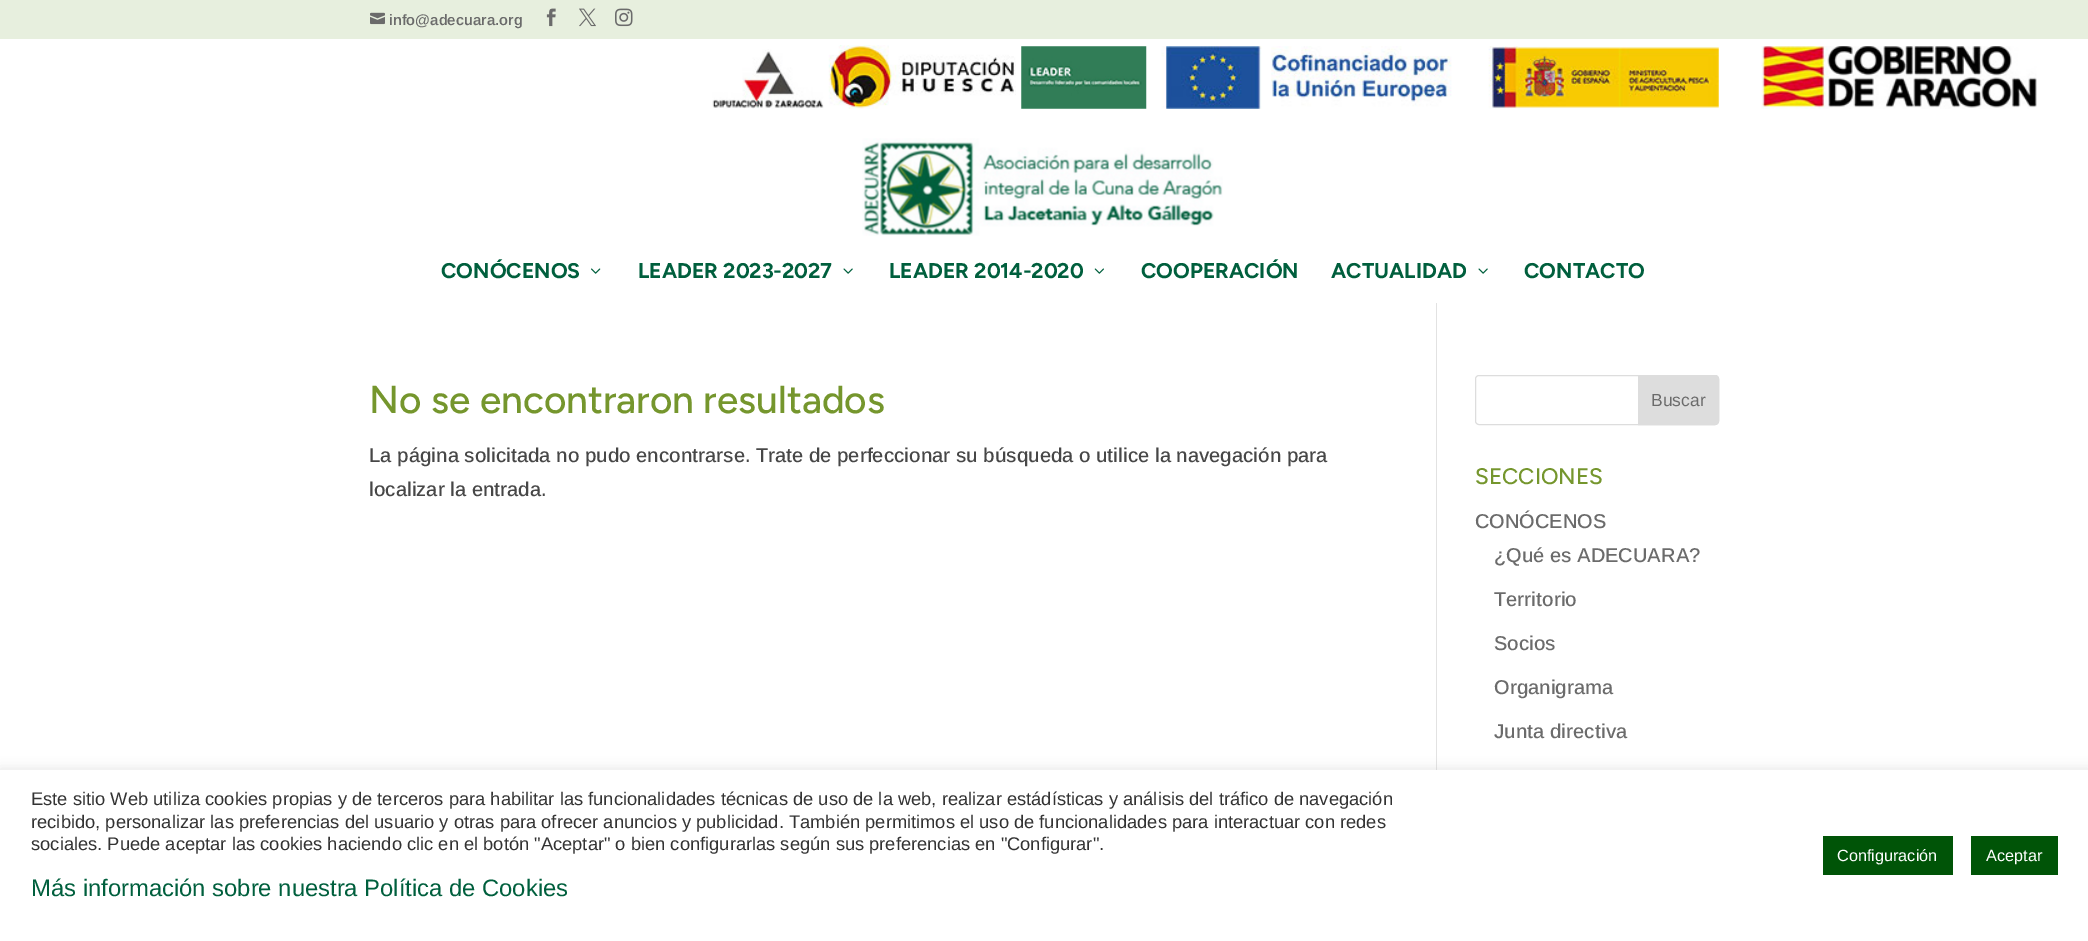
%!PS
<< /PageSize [2088 941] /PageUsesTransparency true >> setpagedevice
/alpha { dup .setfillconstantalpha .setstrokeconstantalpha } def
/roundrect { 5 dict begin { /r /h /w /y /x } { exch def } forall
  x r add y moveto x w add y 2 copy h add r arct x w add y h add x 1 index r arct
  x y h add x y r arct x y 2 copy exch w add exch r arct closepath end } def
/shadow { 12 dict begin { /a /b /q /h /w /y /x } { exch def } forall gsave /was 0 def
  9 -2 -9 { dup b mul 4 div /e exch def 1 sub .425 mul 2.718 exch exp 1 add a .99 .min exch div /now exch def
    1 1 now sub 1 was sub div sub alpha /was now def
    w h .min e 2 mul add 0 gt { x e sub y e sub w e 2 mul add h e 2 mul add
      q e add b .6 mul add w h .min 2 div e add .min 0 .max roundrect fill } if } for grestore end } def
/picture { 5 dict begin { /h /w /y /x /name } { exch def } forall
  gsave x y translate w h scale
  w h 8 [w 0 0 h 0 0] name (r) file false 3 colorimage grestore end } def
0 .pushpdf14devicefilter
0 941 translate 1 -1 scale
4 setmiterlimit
1 setgray
0 0 2088 941 rectfill
0.906 0.937 0.871 setrgbcolor
0 0 2088 39 rectfill
(img1.rgb) 370 12 15 13 picture
/Arimo-SemiBold [15 0 0 -15 0 0] selectfont
0.42 setgray
389 25 moveto (info@adecuara.org) show
(img2.rgb) 546 8 10 19 picture
(img3.rgb) 579 8 17 19 picture
(img4.rgb) 615 8 18 19 picture
(img5.rgb) 712 49 112 60 picture
(img6.rgb) 828 45 188 64 picture
(img7.rgb) 1021 46 126 63 picture
(img8.rgb) 1161 46 291 63 picture
(img9.rgb) 1488 46 231 63 picture
(img10.rgb) 1761 46 276 63 picture
(img11.rgb) 862 138 361 98 picture
/Figtree-Bold [21.25 0 0 -21.25 0 0] selectfont
0 0.373 0.239 setrgbcolor
441 278 moveto (CONÓCENOS) show
(img12.rgb) 591 268 10 6 picture
638 278 moveto (LEADER 2023-2027) show
(img13.rgb) 843 268 10 6 picture
889 278 moveto (LEADER 2014-2020) show
(img14.rgb) 1094 268 10 6 picture
1141 278 moveto (COOPERACIÓN) show
1331 278 moveto (ACTUALIDAD) show
(img13.rgb) 1478 268 10 6 picture
1524 278 moveto (CONTACTO) show
0.886 setgray
1436 303 1 467 rectfill
/Figtree-Medium [38.75 0 0 -38.75 0 0] selectfont
0.459 0.588 0.176 setrgbcolor
369 413 moveto (No se encontraron resultados) show
/Arimo-Medium [20 0 0 -20 0 0] selectfont
0.278 setgray
369 462 moveto (La página solicitada no pudo encontrarse. Trate de perfeccionar su búsqueda o utilice la navegación para) show
369 496 moveto (localizar la entrada.) show
0.867 setgray
1475.5 375.5 243 49 3.5 roundrect stroke
newpath 1638.5 375.5 moveto 1715 375.5 lineto 1717 375.5 1718.5 377 1718.5 379 curveto 1718.5 421 lineto 1718.5 423 1717 424.5 1715 424.5 curveto 1638.5 424.5 lineto closepath gsave fill grestore
stroke
/Arimo-Regular [17.5 0 0 -17.5 0 0] selectfont
0.42 setgray
1651 406 moveto (Buscar) show
/Figtree-Medium [22.5 0 0 -22.5 0 0] selectfont
0.459 0.588 0.176 setrgbcolor
1475 484 moveto (SECCIONES) show
/Arimo-Medium [20 0 0 -20 0 0] selectfont
0.42 setgray
1475 528 moveto (CONÓCENOS) show
1494 562 moveto (¿Qué es ADECUARA?) show
1494 606 moveto (Territorio) show
1494 650 moveto (Socios) show
1494 694 moveto (Organigrama) show
1494 738 moveto (Junta directiva) show
0.675 0.671 0.671 setrgbcolor
0 769 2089 171 0 6 0.3 shadow
1 setgray
0 770 2088 171 rectfill
/Arimo-Regular [18.33 0 0 -18.33 0 0] selectfont
0.2 setgray
31 805 moveto (Este sitio Web utiliza cookies propias y de terceros para habilitar las funcionalidades técnicas de uso de la web, realizar estádísticas y análisis del tráfico de navegación) show
31 828 moveto (recibido, personalizar las preferencias del usuario y otras para ofrecer anuncios y publicidad. También permitimos el uso de funcionalidades para interactuar con redes) show
31 850 moveto (sociales. Puede aceptar las cookies haciendo clic en el botón "Aceptar" o bien configurarlas según sus preferencias en "Configurar".) show
/Arimo-Regular [23.8 0 0 -23.8 0 0] selectfont
0 0.373 0.239 setrgbcolor
31 896 moveto (Más información sobre nuestra Política de Cookies) show
0 0.329 0.027 setrgbcolor
1823 836 130 39 rectfill
/Arimo-Regular [16.25 0 0 -16.25 0 0] selectfont
1 setgray
1837 861 moveto (Configuración) show
0 0.329 0.027 setrgbcolor
1971 836 87 39 rectfill
1 setgray
1986 861 moveto (Aceptar) show
.poppdf14devicefilter showpage
